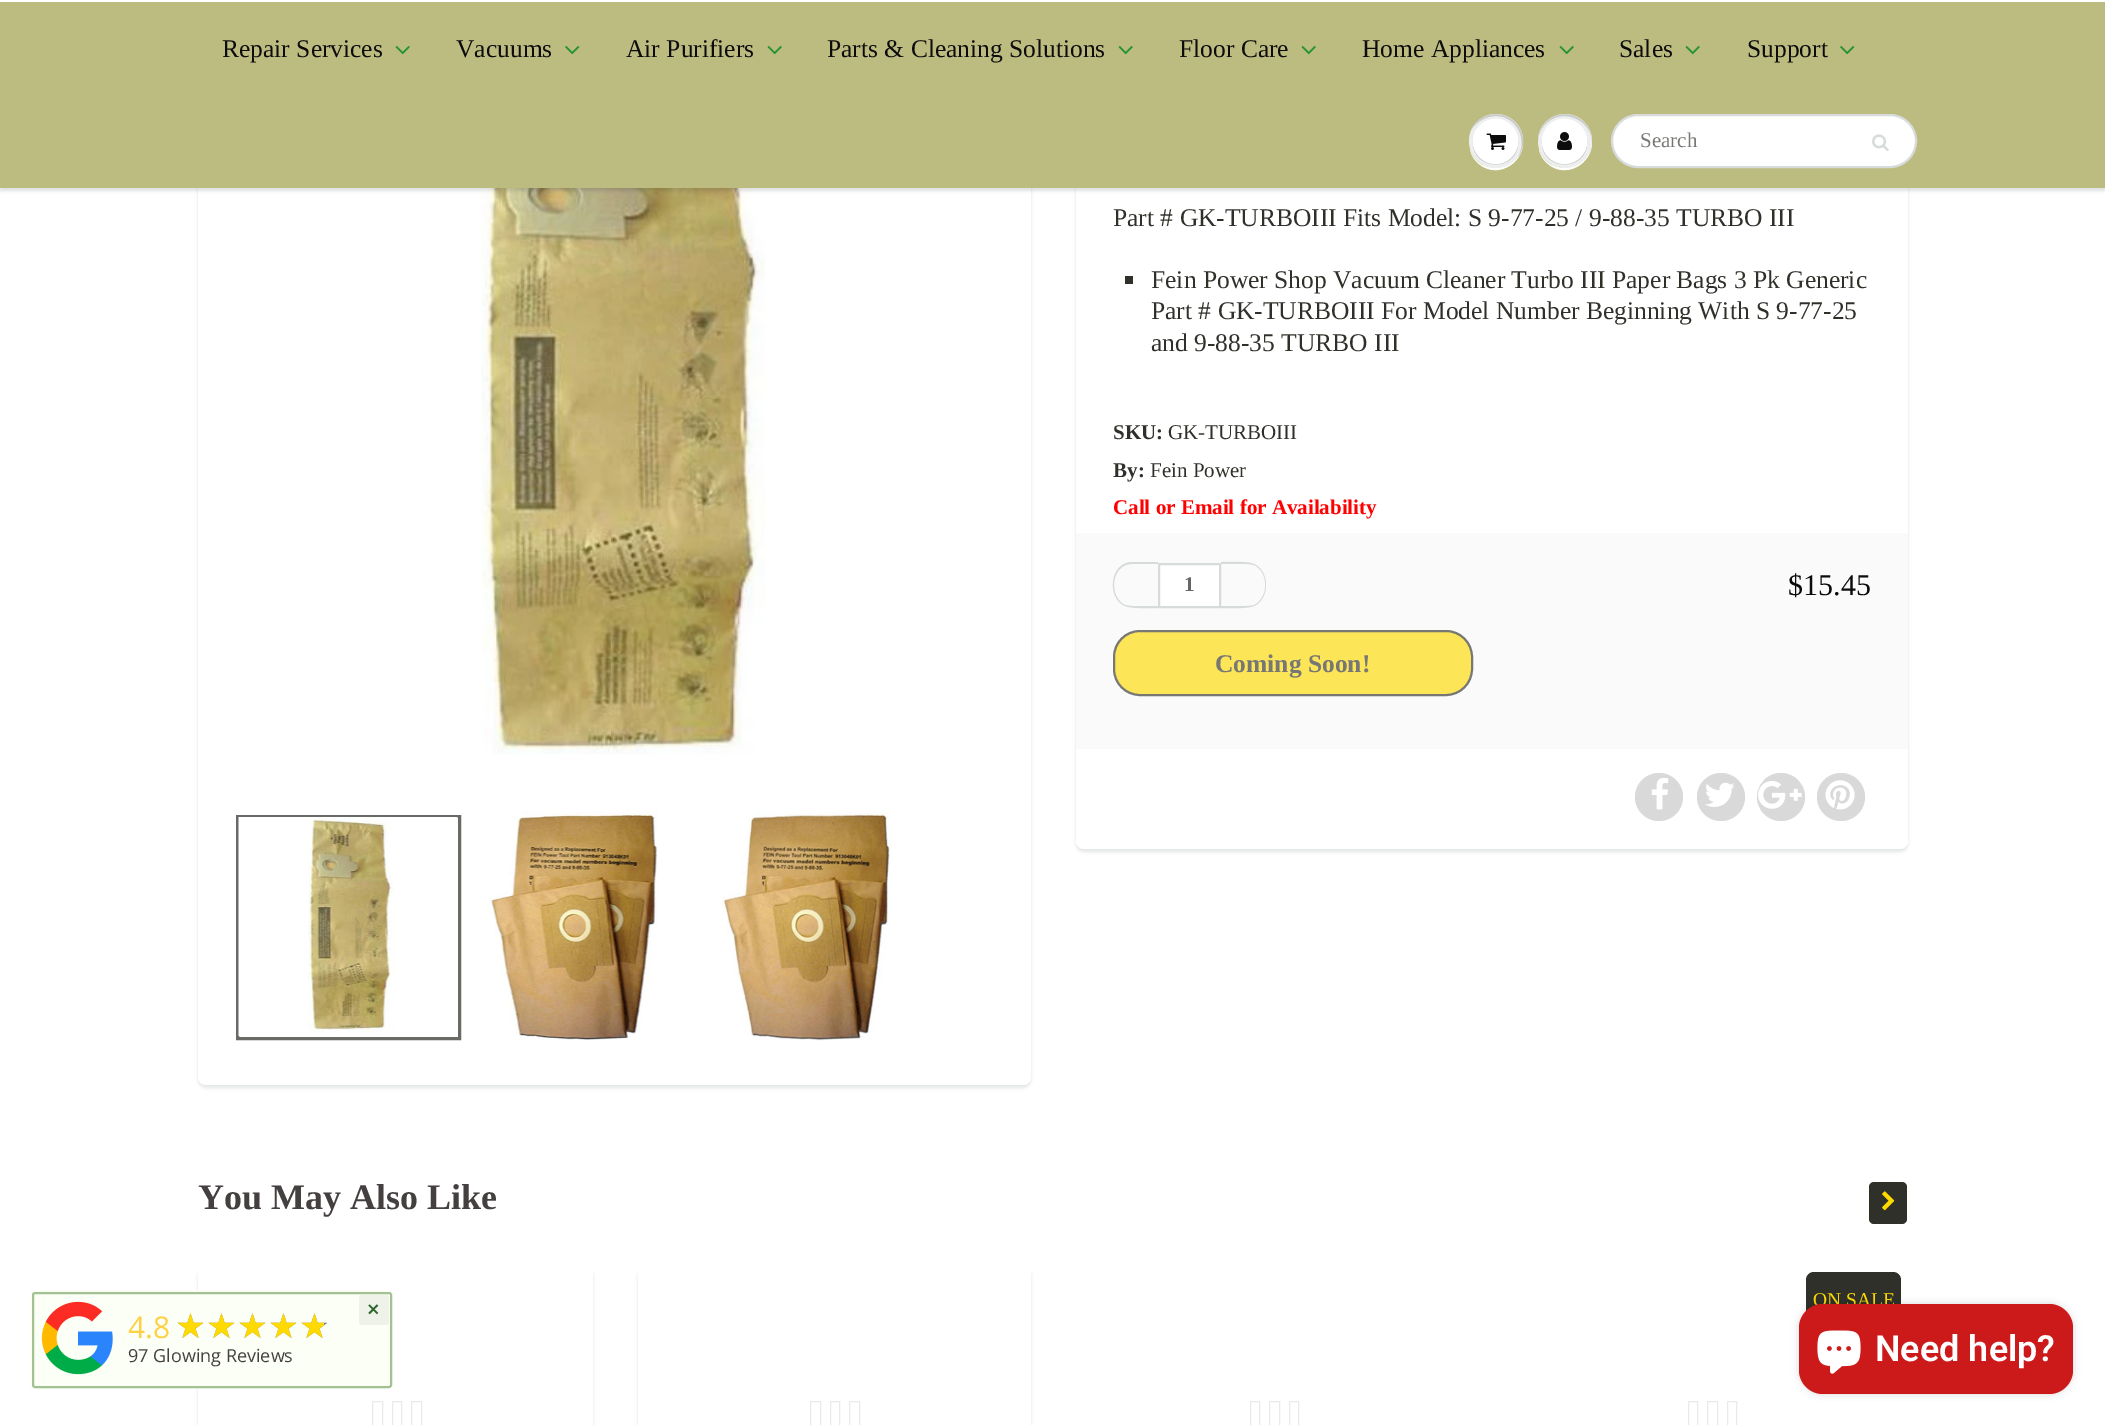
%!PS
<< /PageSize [2105 1425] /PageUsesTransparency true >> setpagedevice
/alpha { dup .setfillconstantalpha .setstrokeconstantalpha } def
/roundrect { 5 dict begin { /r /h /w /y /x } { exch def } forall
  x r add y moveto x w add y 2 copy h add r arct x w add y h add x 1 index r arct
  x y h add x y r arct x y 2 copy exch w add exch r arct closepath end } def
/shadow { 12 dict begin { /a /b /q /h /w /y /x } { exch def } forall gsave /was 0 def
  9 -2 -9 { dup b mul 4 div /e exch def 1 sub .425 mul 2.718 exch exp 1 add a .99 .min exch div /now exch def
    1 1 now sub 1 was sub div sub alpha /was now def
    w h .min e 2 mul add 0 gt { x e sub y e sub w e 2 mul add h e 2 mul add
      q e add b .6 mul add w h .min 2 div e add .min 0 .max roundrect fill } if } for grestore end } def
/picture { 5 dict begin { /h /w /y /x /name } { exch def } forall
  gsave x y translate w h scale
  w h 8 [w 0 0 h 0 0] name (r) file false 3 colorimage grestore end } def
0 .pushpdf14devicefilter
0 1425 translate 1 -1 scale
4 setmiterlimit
1 setgray
0 0 2105 1425 rectfill
0.043 0.098 0.11 setrgbcolor
198 -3 833 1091 8 1.5 0.1 shadow
1 setgray
198 -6 833 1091 8 roundrect fill
(img6.rgb) 481 188 284 567 picture
0.043 0.098 0.11 setrgbcolor
1076 -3 832 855 8 1.5 0.1 shadow
1 setgray
1076 -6 832 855 8 roundrect fill
0.043 0.098 0.11 setrgbcolor
0 3 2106 188 0 1.5 0.12 shadow
0.737 0.737 0.502 setrgbcolor
0 2 2105 186 rectfill
1 setgray
0 0 2105 2 rectfill
/LiberationSerif-Regular [25.5 0 0 -25.5 0 0] selectfont
0.051 0.047 0.047 setrgbcolor
222 57 moveto (Repair Services) show
(img1.rgb) 395 46 15 9 picture
456 57 moveto (Vacuums) show
(img2.rgb) 565 46 15 9 picture
626 57 moveto (Air Purifiers) show
(img1.rgb) 767 46 15 9 picture
827 57 moveto (Parts & Cleaning Solutions) show
(img1.rgb) 1118 46 15 9 picture
1179 57 moveto (Floor Care) show
(img1.rgb) 1301 46 15 9 picture
1362 57 moveto (Home Appliances) show
(img1.rgb) 1559 46 15 9 picture
1619 57 moveto (Sales) show
(img1.rgb) 1685 46 15 9 picture
1747 57 moveto (Support) show
(img2.rgb) 1840 46 15 9 picture
1 setgray
newpath 1470 149 moveto 1471 155 1474 160 1479 164 curveto 1499 181 1529 160 1522 135 curveto 1529 169 1479 181 1470 149 curveto closepath fill
0.929 0.937 0.937 setrgbcolor
newpath 1496 141 27 0 360 arc closepath fill
0.788 0.796 0.796 setrgbcolor
newpath 1496 116 moveto 1517 116 1528 140 1518 157 curveto 1534 135 1510 105 1484 117 curveto 1479 119 1474 124 1471 130 curveto 1476 122 1486 116 1496 116 curveto closepath fill
newpath 1473 142 moveto 1472 172 1519 172 1518 142 curveto 1517 170 1474 170 1473 142 curveto closepath fill
1 setgray
newpath 1495.5 141.5 22.5 0 360 arc closepath fill
newpath 1496 120 moveto 1512 120 1519 134 1517 147 curveto 1519 141 1518 134 1514 129 curveto 1499 106 1465 126 1475 150 curveto 1471 137 1478 120 1496 120 curveto closepath fill
(img3.rgb) 1486 133 20 17 picture
newpath 1539 149 moveto 1540 155 1543 160 1548 164 curveto 1568 181 1598 160 1591 135 curveto 1598 169 1548 181 1539 149 curveto closepath fill
0.929 0.937 0.937 setrgbcolor
newpath 1565 141 27 0 360 arc closepath fill
0.788 0.796 0.796 setrgbcolor
newpath 1564 116 moveto 1579 116 1592 128 1592 142 curveto 1592 115 1558 104 1543 126 curveto 1540 130 1538 136 1538 142 curveto 1538 128 1550 116 1564 116 curveto closepath 1542 142 moveto 1541 172 1588 172 1587 142 curveto 1586 170 1543 170 1542 142 curveto closepath fill
1 setgray
newpath 1564.5 141.5 22.5 0 360 arc closepath fill
newpath 1564 120 moveto 1582 120 1589 137 1585 150 curveto 1595 126 1561 106 1546 129 curveto 1542 134 1541 141 1543 147 curveto 1541 134 1548 120 1564 120 curveto closepath fill
(img4.rgb) 1557 132 15 18 picture
1612 115 304 52 26 roundrect gsave fill grestore
0.843 0.859 0.859 setrgbcolor
2 setlinewidth
stroke
/LiberationSerif-Regular [21 0 0 -21 0 0] selectfont
0.467 0.467 0.451 setrgbcolor
1640 147 moveto (Search) show
(img5.rgb) 1872 134 17 17 picture
0.412 0.412 0.396 setrgbcolor
3 setlinewidth
237.5 816.5 222 222 rectstroke
(img7.rgb) 238 817 220 219 picture
(img8.rgb) 489 811 169 229 picture
(img9.rgb) 722 811 169 230 picture
/LiberationSerif-Regular [25.5 0 0 -25.5 0 0] selectfont
0.188 0.188 0.169 setrgbcolor
1113 226 moveto (Part # GK-TURBOIII Fits Model: S 9-77-25 / 9-88-35 TURBO III) show
1125 276 8 8 rectfill
1151 288 moveto (Fein Power Shop Vacuum Cleaner Turbo III Paper Bags 3 Pk Generic) show
1151 319 moveto (Part # GK-TURBOIII For Model Number Beginning With S 9-77-25) show
1151 351 moveto (and 9-88-35 TURBO III) show
/LiberationSerif-Bold [21 0 0 -21 0 0] selectfont
1113 439 moveto (SKU:) show
/LiberationSerif-Regular [21 0 0 -21 0 0] selectfont
1168 439 moveto (GK-TURBOIII) show
/LiberationSerif-Bold [21 0 0 -21 0 0] selectfont
1113 477 moveto (By:) show
/LiberationSerif-Regular [21 0 0 -21 0 0] selectfont
1150 477 moveto (Fein Power) show
/LiberationSerif-Bold [21 0 0 -21 0 0] selectfont
1 0 0 setrgbcolor
1113 514 moveto (Call or Email for Availability) show
0.98 setgray
1076 533 832 216 rectfill
0.843 0.859 0.859 setrgbcolor
newpath 1132 562 moveto 1158 562 lineto 1158 608 lineto 1150 608 1132 609 1125 606 curveto 1106 598 1110 562 1132 562 curveto closepath 1132 564 moveto 1158 564 lineto 1158 606 lineto 1150 606 1132 607 1125 605 curveto 1108 597 1111 564 1132 564 curveto closepath eofill
1 setgray
newpath 1159 564 moveto 1220 564 lineto 1220 607 lineto 1159 607 lineto closepath gsave fill grestore
0.843 0.859 0.859 setrgbcolor
2 setlinewidth
stroke
0.396 0.396 0.38 setrgbcolor
1184 591 moveto (1) show
0.843 0.859 0.859 setrgbcolor
newpath 1221 562 moveto 1229 562 1247 561 1254 564 curveto 1270 571 1270 599 1254 606 curveto 1247 609 1229 608 1221 608 curveto closepath 1221 564 moveto 1229 564 1247 563 1254 565 curveto 1269 572 1269 598 1254 605 curveto 1247 607 1229 606 1221 606 curveto closepath eofill
/LiberationSerif-Regular [30 0 0 -30 0 0] selectfont
0.051 0.047 0.047 setrgbcolor
1788 595 moveto ($15.45) show
0.992 0.898 0.345 setrgbcolor
1114 631 358 64 26 roundrect gsave fill grestore
0.467 0.467 0.451 setrgbcolor
stroke
/LiberationSerif-Bold [25.5 0 0 -25.5 0 0] selectfont
1215 672 moveto (Coming Soon!) show
0.851 setgray
newpath 1659 797 24 0 360 arc closepath fill
(img10.rgb) 1651 777 18 33 picture
newpath 1721 797 24 0 360 arc closepath fill
(img11.rgb) 1705 782 30 25 picture
newpath 1781 797 24 0 360 arc closepath fill
(img12.rgb) 1758 781 44 28 picture
newpath 1841 797 24 0 360 arc closepath fill
(img13.rgb) 1825 780 30 30 picture
/LiberationSerif-Bold [36 0 0 -36 0 0] selectfont
0.271 0.251 0.251 setrgbcolor
198 1209 moveto (You May Also Like) show
0.188 0.188 0.169 setrgbcolor
1869 1182 38 42 5 roundrect fill
(img14.rgb) 1882 1191 13 20 picture
0.043 0.098 0.11 setrgbcolor
198 1268 395 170 8 1.5 0.1 shadow
1 setgray
198 1265 395 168 8 roundrect fill
0.918 setgray
1 setlinewidth
372.5 1401.5 10 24 rectstroke
392.5 1401.5 9 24 rectstroke
411.5 1401.5 10 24 rectstroke
0.043 0.098 0.11 setrgbcolor
638 1268 393 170 8 1.5 0.1 shadow
1 setgray
638 1265 393 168 8 roundrect fill
0.918 setgray
810.5 1401.5 10 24 rectstroke
830.5 1401.5 9 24 rectstroke
849.5 1401.5 10 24 rectstroke
0.188 0.188 0.169 setrgbcolor
1806 1272 95 53 8 roundrect fill
/LiberationSerif-Regular [19.5 0 0 -19.5 0 0] selectfont
1 0.855 0 setrgbcolor
1813 1306 moveto (ON SALE) show
0.918 setgray
1688.5 1401.5 9 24 rectstroke
1707.5 1401.5 10 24 rectstroke
1727.5 1401.5 9 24 rectstroke
1250.5 1401.5 9 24 rectstroke
1269.5 1401.5 10 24 rectstroke
1289.5 1401.5 9 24 rectstroke
0.988 1 0.961 setrgbcolor
30 1290 363 99 5 roundrect fill
0.639 0.761 0.576 setrgbcolor
2 setlinewidth
33 1293 358 94 2 roundrect stroke
0.937 0.949 0.914 setrgbcolor
359 1295 30 30 3 roundrect fill
/OpenSans-Bold [21 0 0 -21 0 0] selectfont
0.173 0.4 0.176 setrgbcolor
367 1317 moveto (×) show
(img15.rgb) 41 1301 72 74 picture
/OpenSans-Regular [30 0 0 -30 0 0] selectfont
0.996 0.82 0.267 setrgbcolor
128 1338 moveto (4.8) show
/DejaVuSans-Regular [34.5 0 0 -34.5 0 0] selectfont
0.502 setgray
175 1338 moveto (★★★★★) show
gsave
176 1310 148 30 rectclip
1 0.855 0 setrgbcolor
175 1338 moveto (★★★★★) show
grestore
/OpenSans-Regular [18 0 0 -18 0 0] selectfont
0.271 0.251 0.251 setrgbcolor
128 1362 moveto (97 Glowing Reviews) show
0 setgray
1799 1304 274 90 24 4 0.15 shadow
0.8 0.098 0.098 setrgbcolor
1799 1304 274 90 24 roundrect fill
(img16.rgb) 1817 1330 44 44 picture
/Roboto-SemiBold [36 0 0 -36 0 0] selectfont
1 setgray
1875 1361 moveto (Need help?) show
.poppdf14devicefilter showpage
